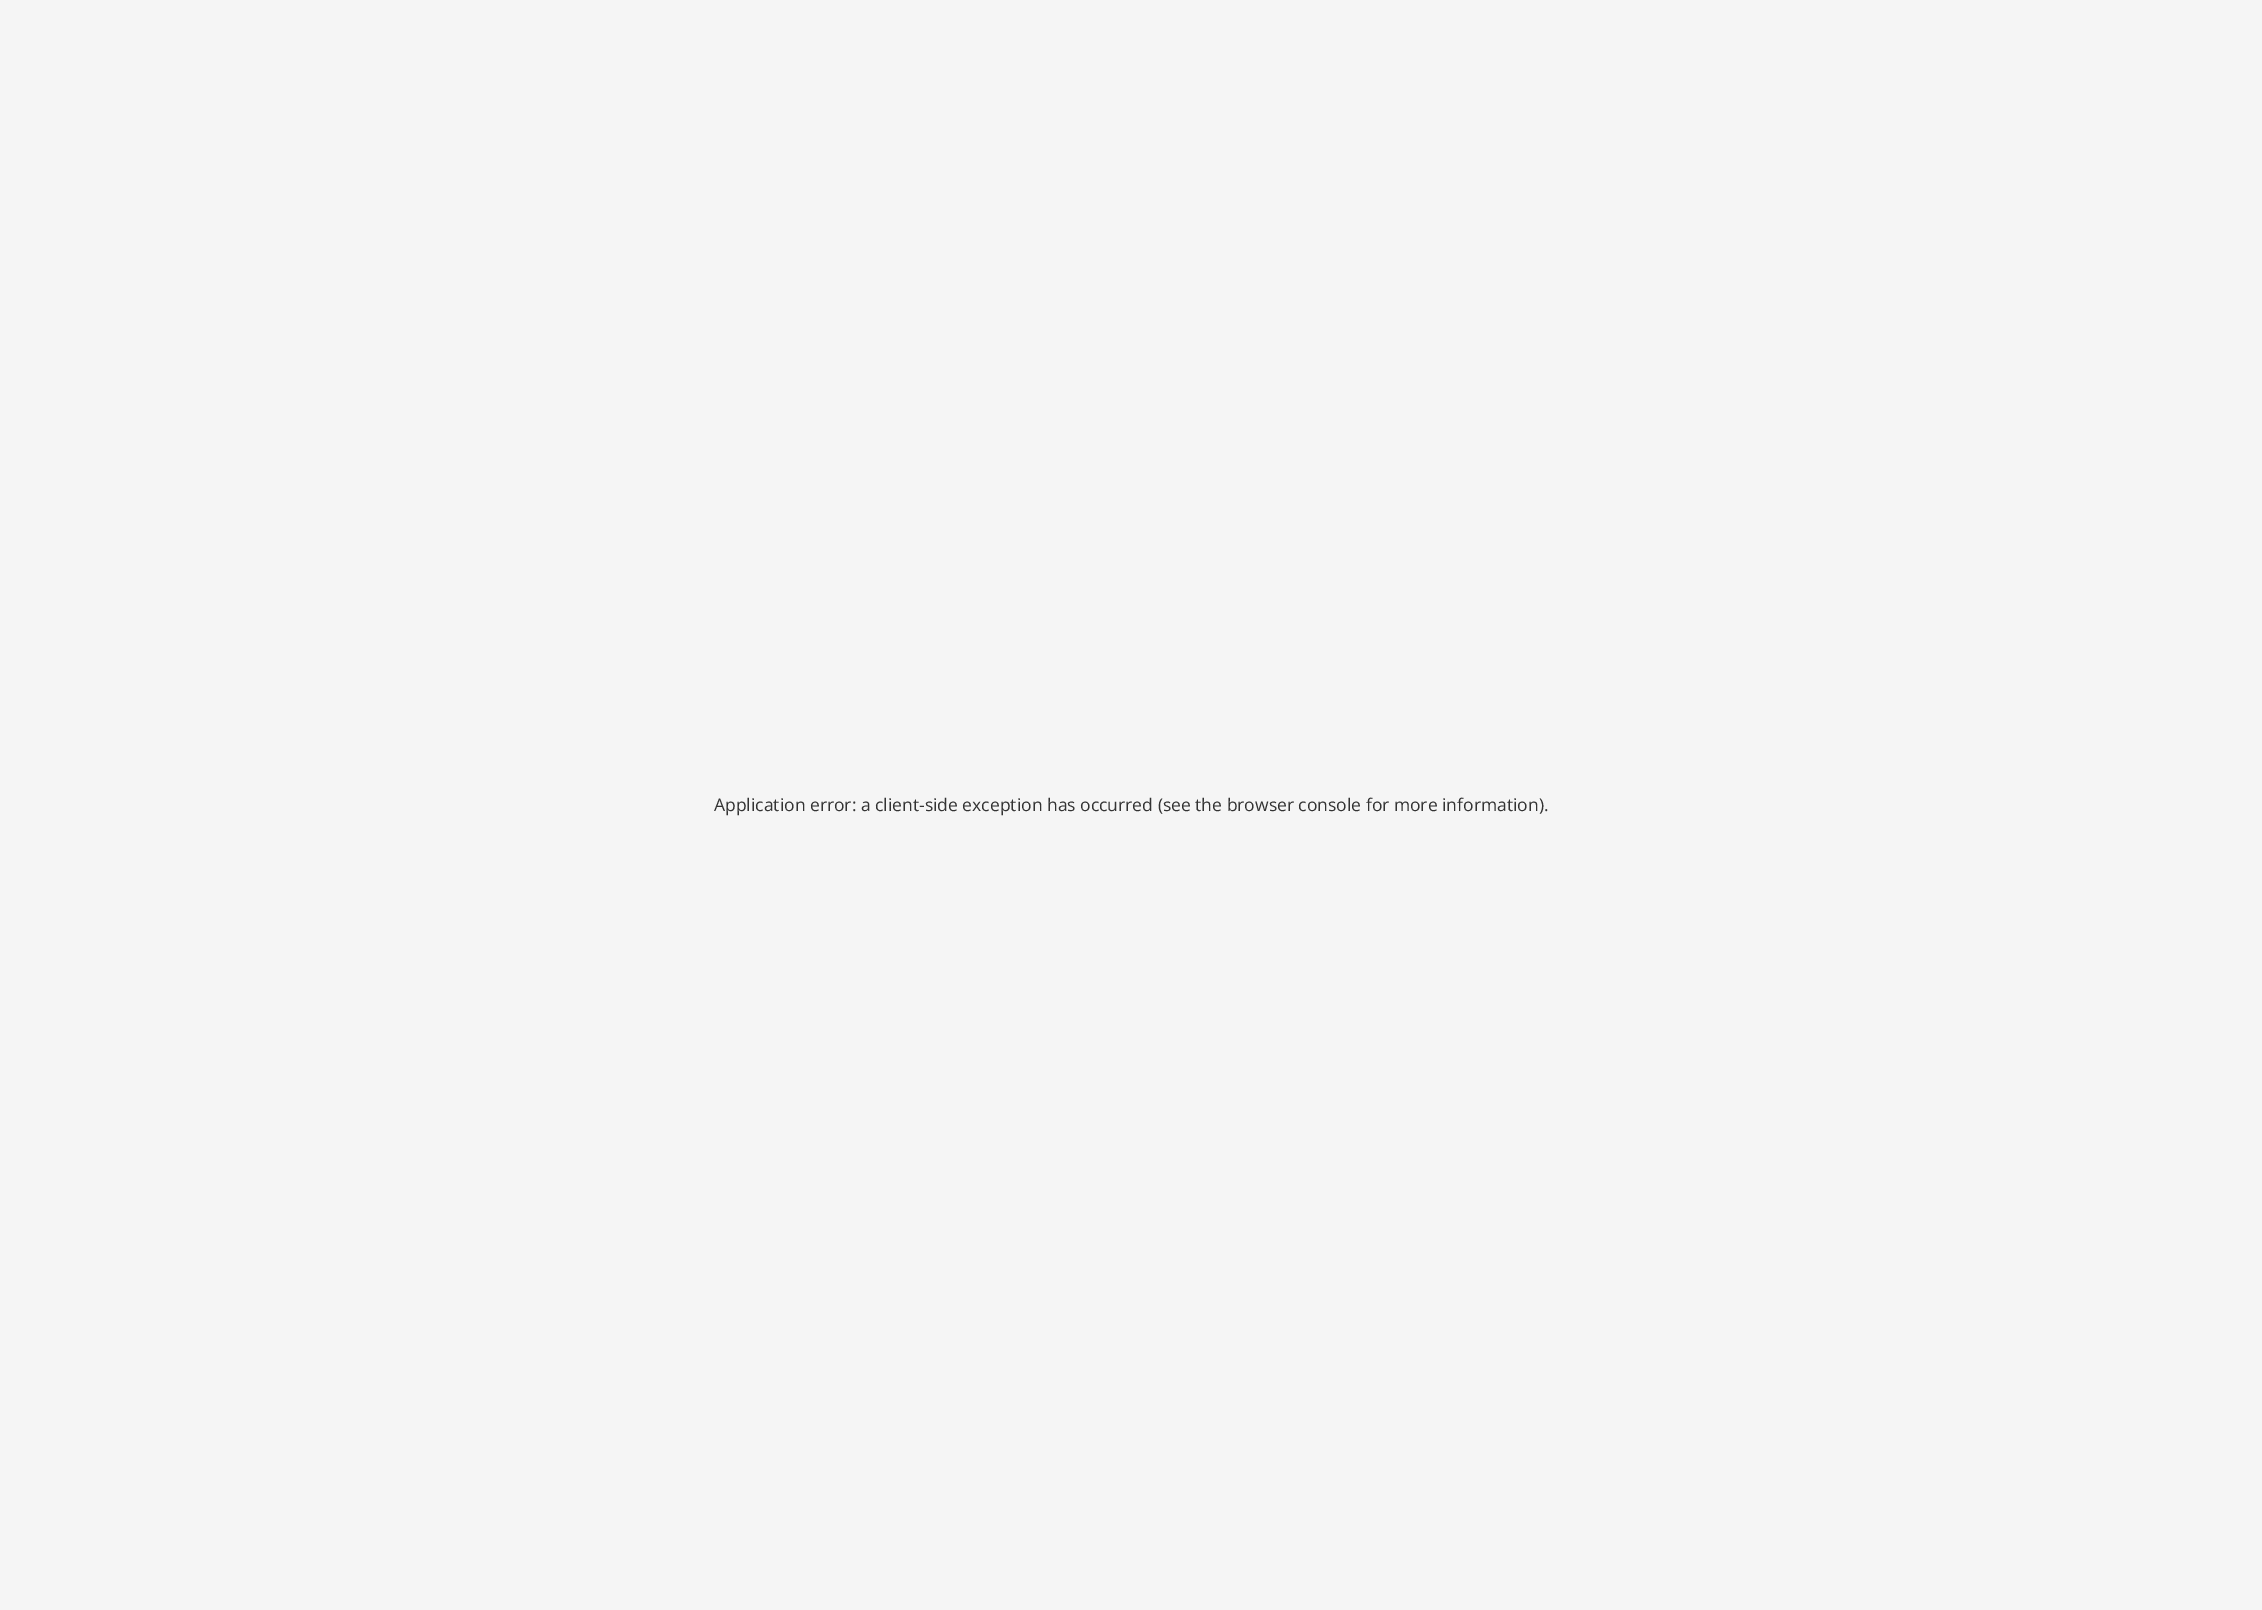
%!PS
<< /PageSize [2262 1610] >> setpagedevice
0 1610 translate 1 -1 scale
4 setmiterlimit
0.961 setgray
0 0 2262 1610 rectfill
/OpenSans-Regular [17.5 0 0 -17.5 0 0] selectfont
0.2 setgray
714 811 moveto (Application error: a client-side exception has occurred \(see the browser console for more information\).) show
showpage
